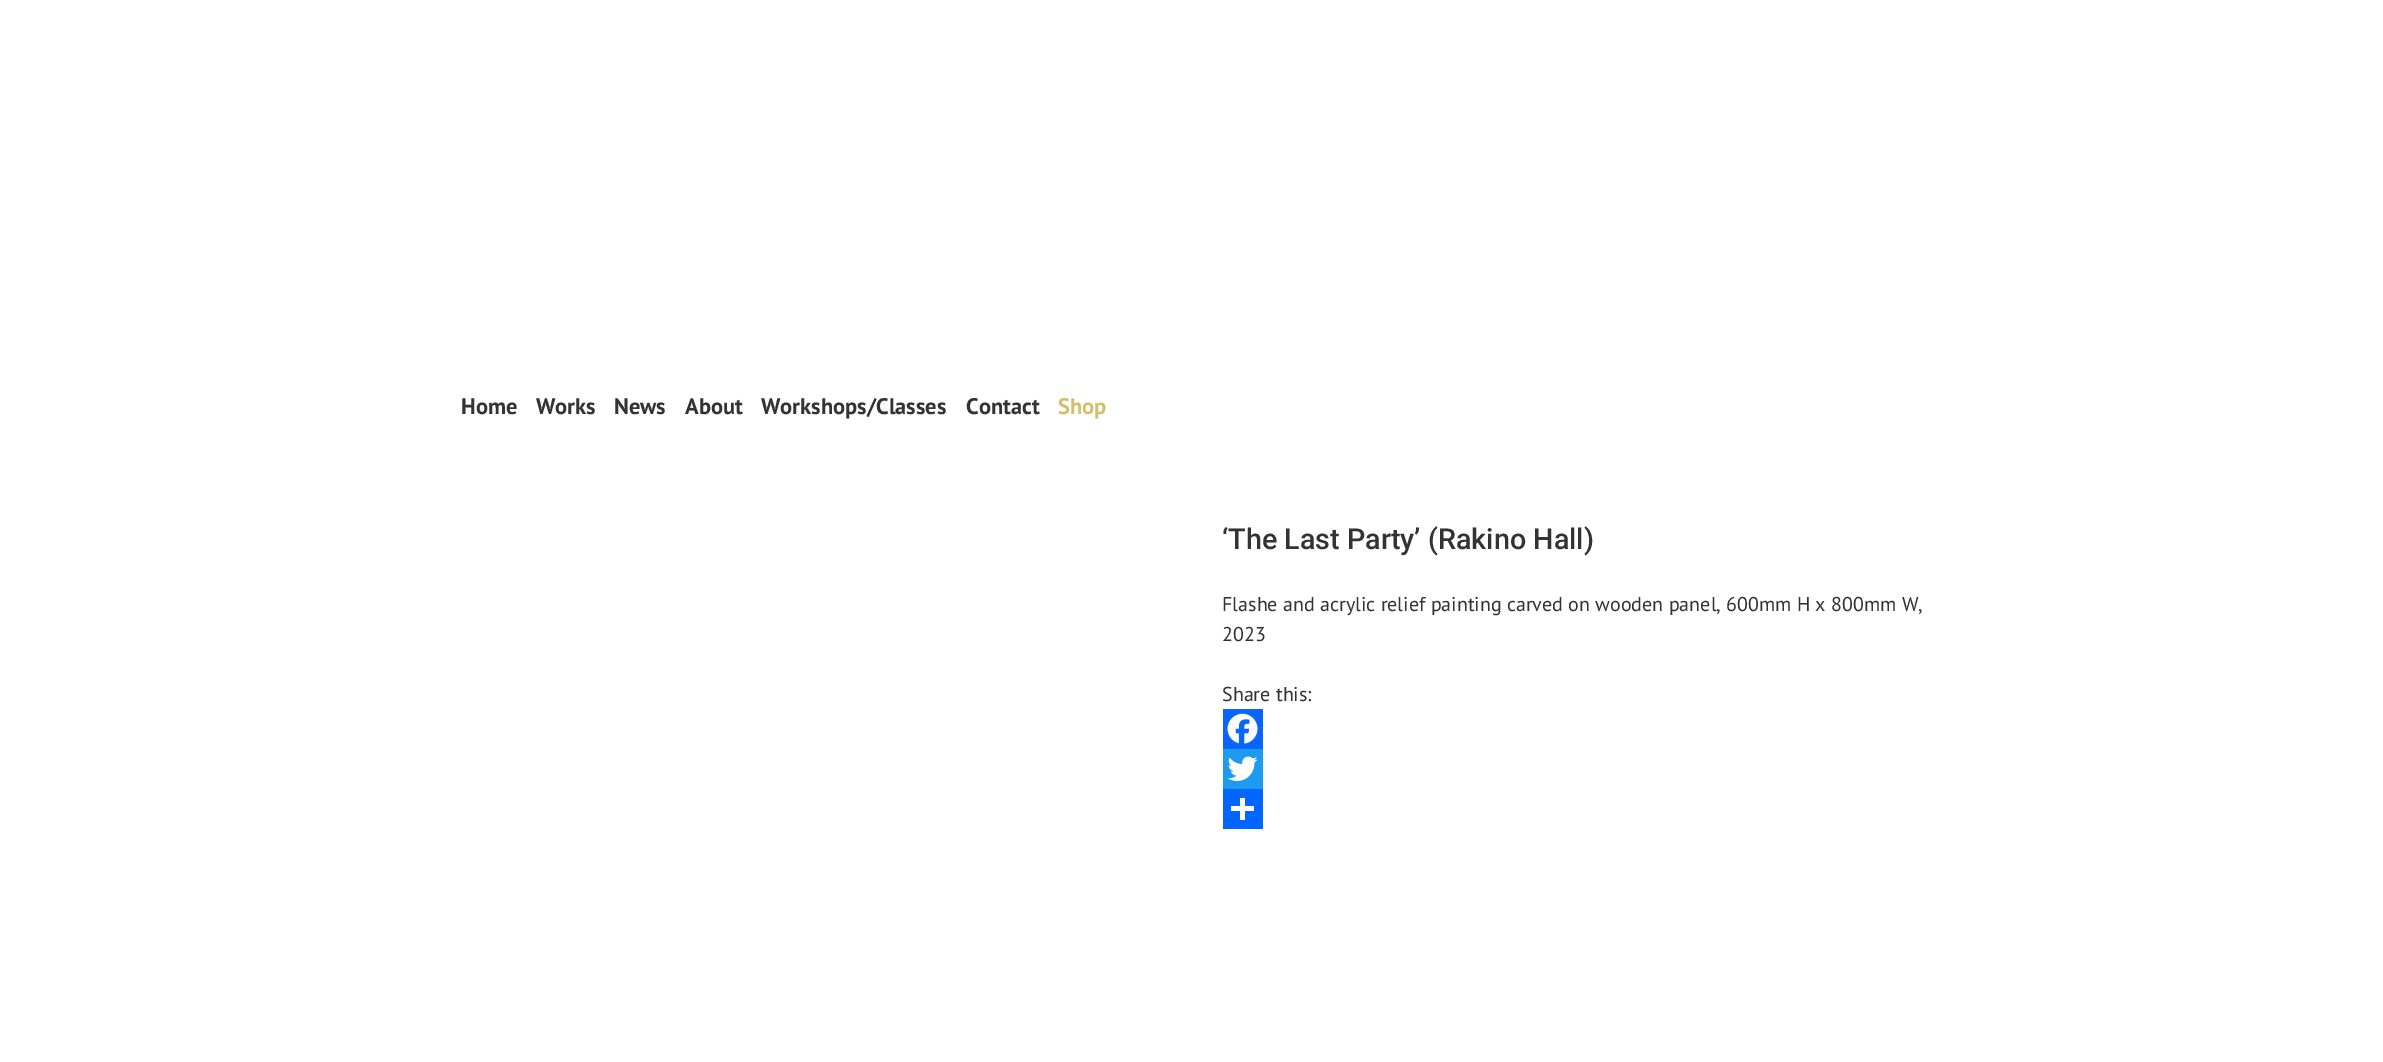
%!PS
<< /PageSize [2383 1062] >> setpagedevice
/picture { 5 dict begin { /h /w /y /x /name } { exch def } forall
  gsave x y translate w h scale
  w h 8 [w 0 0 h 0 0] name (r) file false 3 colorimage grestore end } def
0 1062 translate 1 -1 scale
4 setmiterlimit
1 setgray
0 0 2383 1062 rectfill
/PTSans-Bold [22.5 0 0 -22.5 0 0] selectfont
0.2 setgray
461 414 moveto (Home) show
536 414 moveto (Works) show
614 414 moveto (News) show
685 414 moveto (About) show
761 414 moveto (Workshops/Classes) show
966 414 moveto (Contact) show
0.824 0.753 0.424 setrgbcolor
1058 414 moveto (Shop) show
/Roboto-Medium [28.75 0 0 -28.75 0 0] selectfont
0.2 setgray
1222 549 moveto (‘The Last Party’ \(Rakino Hall\)) show
/PTSans-Regular [20 0 0 -20 0 0] selectfont
1222 611 moveto (Flashe and acrylic relief painting carved on wooden panel, 600mm H x 800mm W,) show
1222 641 moveto (2023) show
1222 701 moveto (Share this:) show
0.031 0.4 1 setrgbcolor
1223 709 40 40 rectfill
(img1.rgb) 1227 713 31 31 picture
0.114 0.608 0.941 setrgbcolor
1223 749 40 40 rectfill
(img2.rgb) 1227 756 31 25 picture
0.004 0.4 1 setrgbcolor
1223 789 40 40 rectfill
1 setgray
1240 798 5 22 rectfill
1231 806 23 5 rectfill
showpage
